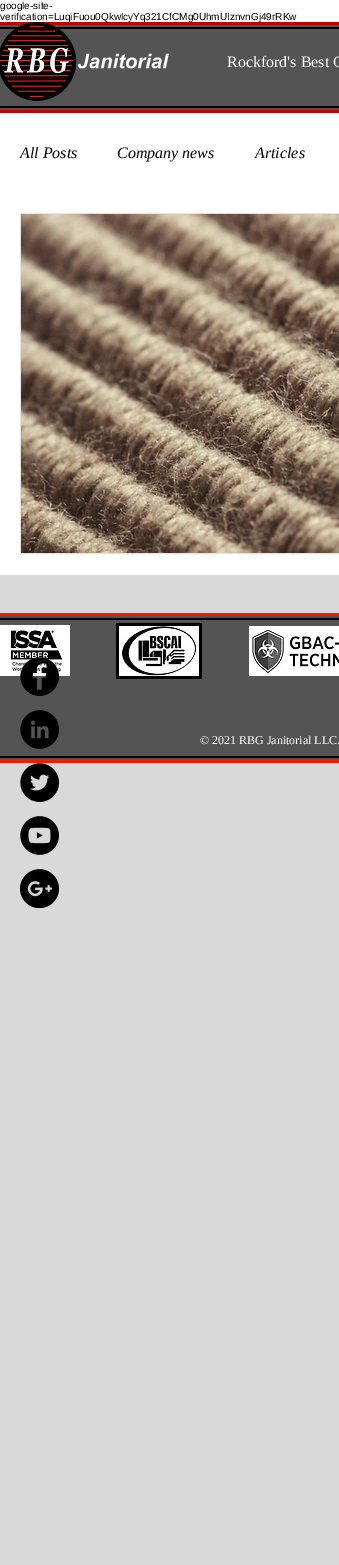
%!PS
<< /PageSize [339 1565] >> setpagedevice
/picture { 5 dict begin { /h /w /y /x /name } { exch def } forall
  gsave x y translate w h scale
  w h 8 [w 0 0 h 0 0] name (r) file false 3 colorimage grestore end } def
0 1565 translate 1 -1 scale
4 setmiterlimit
1 setgray
0 0 339 1565 rectfill
/LiberationSans-Regular [10 0 0 -10 0 0] selectfont
0 setgray
0 9 moveto (google-site-) show
0 20 moveto (verification=LuqiFuou0QkwlcyYq321CfCMg0UhmUIznvnGj49rRKw) show
0.753 0 0 setrgbcolor
0 22 339 3 rectfill
0 110 339 3 rectfill
0.329 setgray
0 25 339 85 rectfill
0 setgray
0 27 339 2 rectfill
0 106 339 2 rectfill
(img1.rgb) 0 22 169 79 picture
/LiberationSerif-Regular [16 0 0 -16 0 0] selectfont
1 setgray
227 67 moveto (Rockford's Best G) show
/LiberationSerif-Italic [16 0 0 -16 0 0] selectfont
0 setgray
20 158 moveto (All Posts) show
117 158 moveto (Company news) show
255 158 moveto (Articles) show
0.89 setgray
20.5 213.5 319 340 rectstroke
(img2.rgb) 21 214 318 339 picture
0.851 setgray
0 575 339 990 rectfill
0.329 setgray
0 616 339 144 rectfill
(img8.rgb) 0 625 70 51 picture
(img3.rgb) 20 657 39 39 picture
(img4.rgb) 20 710 39 39 picture
(img5.rgb) 20 763 39 39 picture
(img6.rgb) 20 816 39 39 picture
(img7.rgb) 20 869 39 39 picture
1 0.082 0 setrgbcolor
0 613 339 3 rectfill
0 760 339 3 rectfill
0 setgray
0 618 339 2 rectfill
0 756 339 2 rectfill
116 623 86 56 rectfill
(img9.rgb) 119 626 80 50 picture
(img10.rgb) 249 626 90 50 picture
/LiberationSerif-Regular [12 0 0 -12 0 0] selectfont
1 setgray
200 744 moveto (© 2021 RBG Janitorial LLC.) show
showpage
